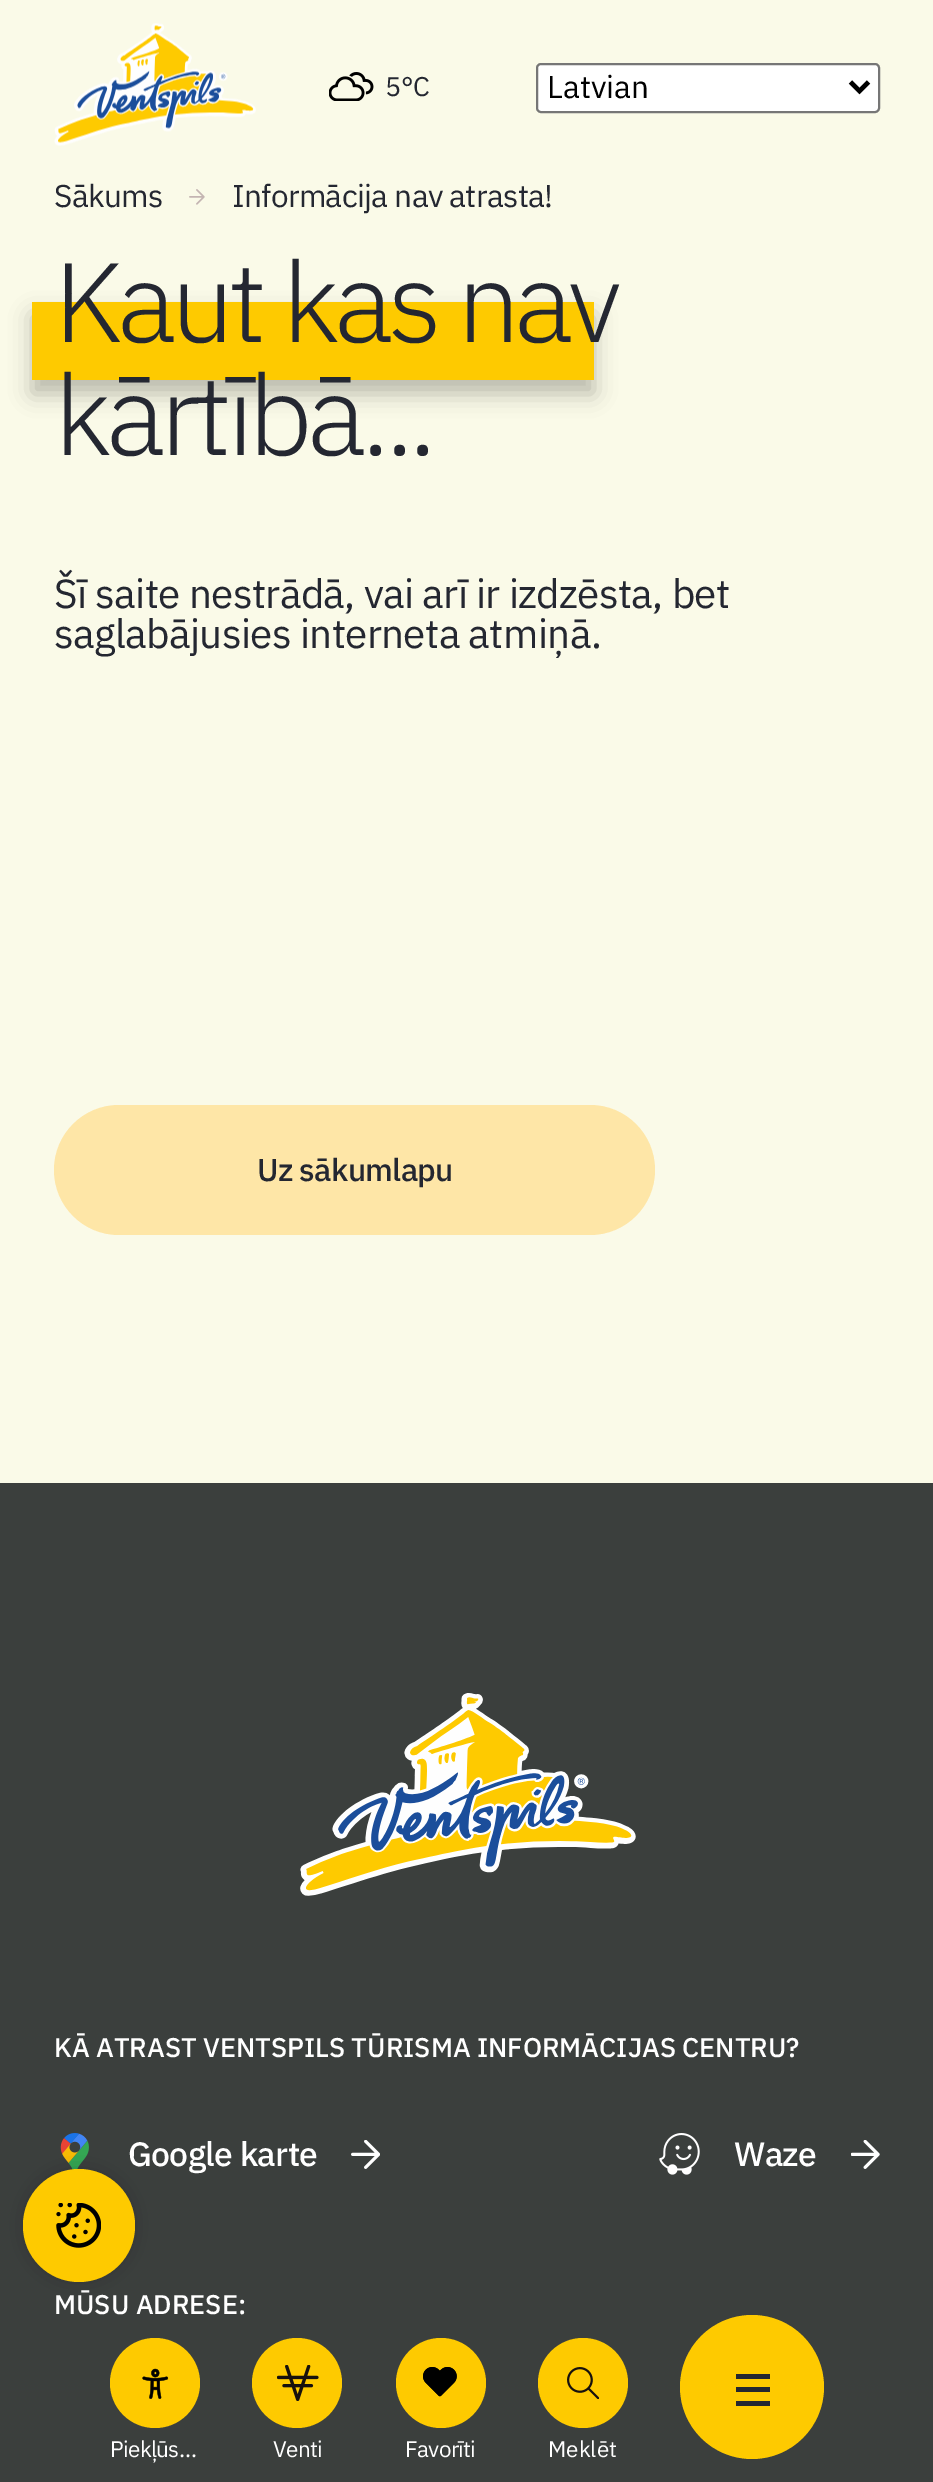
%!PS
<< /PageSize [933 2482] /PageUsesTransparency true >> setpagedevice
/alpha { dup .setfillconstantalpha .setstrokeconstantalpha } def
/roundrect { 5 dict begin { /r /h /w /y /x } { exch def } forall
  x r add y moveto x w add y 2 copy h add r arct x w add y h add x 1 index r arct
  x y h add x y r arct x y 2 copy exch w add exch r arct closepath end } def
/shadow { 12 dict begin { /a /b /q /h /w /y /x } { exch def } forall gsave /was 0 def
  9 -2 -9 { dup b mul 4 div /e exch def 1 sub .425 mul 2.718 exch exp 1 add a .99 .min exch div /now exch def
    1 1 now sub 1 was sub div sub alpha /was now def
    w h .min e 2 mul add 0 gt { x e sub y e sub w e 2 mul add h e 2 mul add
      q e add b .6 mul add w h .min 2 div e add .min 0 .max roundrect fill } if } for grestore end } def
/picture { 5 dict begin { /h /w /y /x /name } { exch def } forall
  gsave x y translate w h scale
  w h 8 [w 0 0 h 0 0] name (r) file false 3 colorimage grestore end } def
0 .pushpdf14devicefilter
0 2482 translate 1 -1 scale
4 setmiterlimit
0.98 0.98 0.91 setrgbcolor
0 0 933 2482 rectfill
(img1.rgb) 54 23 202 123 picture
(img2.rgb) 329 72 45 29 picture
/IBMPlexSans-Regular [27 0 0 -27 0 0] selectfont
0.141 0.153 0.192 setrgbcolor
385 96 moveto -0.65 0 (5°C) ashow
1 setgray
537 64 342 48 4 roundrect gsave fill grestore
0.463 setgray
2 setlinewidth
stroke
0 setgray
4.5 setlinewidth
newpath 850.5 82 moveto 859.5 91 lineto 868.5 82 lineto stroke
/IBMPlexSans-Regular [31.5 0 0 -31.5 0 0] selectfont
547 98 moveto (Latvian) show
0.141 0.153 0.192 setrgbcolor
54 207 moveto -0.65 0 (Sākums) ashow
(img3.rgb) 189 189 16 16 picture
232 207 moveto -0.65 0 (Informācija nav atrasta!) ashow
0 setgray
32 315 562 79 0 11 0.25 shadow
0.996 0.792 0 setrgbcolor
32 302 562 78 rectfill
/IBMPlexSans-Light [112.5 0 0 -112.5 0 0] selectfont
0.141 0.153 0.192 setrgbcolor
54 342 moveto -5.6 0 (Kaut kas nav) ashow
54 455 moveto -5.6 0 (kārtībā...) ashow
/IBMPlexSans-Regular [40.5 0 0 -40.5 0 0] selectfont
54 608 moveto -0.65 0 (Šī saite nestrādā, vai arī ir izdzēsta, bet) ashow
54 648 moveto -0.65 0 (saglabājusies interneta atmiņā.) ashow
0.996 0.902 0.655 setrgbcolor
54 1105 601 130 65 roundrect fill
/IBMPlexSans-Medium [31.5 0 0 -31.5 0 0] selectfont
0.141 0.153 0.192 setrgbcolor
257 1181 moveto -0.65 0 (Uz sākumlapu) ashow
0.231 0.247 0.239 setrgbcolor
0 1483 933 999 rectfill
(img4.rgb) 300 1693 336 203 picture
/IBMPlexSans-Medium [27 0 0 -27 0 0] selectfont
1 setgray
54 2057 moveto (KĀ ATRAST VENTSPILS TŪRISMA INFORMĀCIJAS CENTRU?) show
(img5.rgb) 60 2133 29 37 picture
/IBMPlexSans-Medium [33.75 0 0 -33.75 0 0] selectfont
128 2166 moveto -0.65 0 (Google karte) ashow
(img6.rgb) 351 2140 29 29 picture
(img7.rgb) 659 2133 41 42 picture
734 2166 moveto -0.65 0 (Waze) ashow
(img8.rgb) 851 2140 29 29 picture
/IBMPlexSans-Medium [27 0 0 -27 0 0] selectfont
54 2314 moveto (MŪSU ADRESE:) show
0.043 0.055 0.086 setrgbcolor
23 2169 112 113 56 11 0.2 shadow
0.996 0.792 0 setrgbcolor
23 2169 112 113 56 roundrect fill
(img9.rgb) 56 2203 45 45 picture
newpath 155 2383 45 0 360 arc closepath fill
(img10.rgb) 142 2368 27 31 picture
/IBMPlexSans-Regular [22.5 0 0 -22.5 0 0] selectfont
1 setgray
110 2457 moveto -0.65 0 (Piekļūs…) ashow
0.996 0.792 0 setrgbcolor
newpath 297 2383 45 0 360 arc closepath fill
(img11.rgb) 277 2365 42 36 picture
1 setgray
273 2457 moveto -0.65 0 (Venti) ashow
0.996 0.792 0 setrgbcolor
newpath 441 2383 45 0 360 arc closepath fill
(img12.rgb) 423 2367 34 30 picture
1 setgray
405 2457 moveto -0.65 0 (Favorīti) ashow
0.996 0.792 0 setrgbcolor
newpath 583 2383 45 0 360 arc closepath fill
(img13.rgb) 567 2367 32 32 picture
1 setgray
548 2457 moveto (Meklēt) show
0.996 0.792 0 setrgbcolor
newpath 752 2387 72 0 360 arc closepath fill
0.141 0.153 0.192 setrgbcolor
736 2374 34 5 rectfill
736 2387 34 5 rectfill
736 2401 34 5 rectfill
.poppdf14devicefilter showpage
